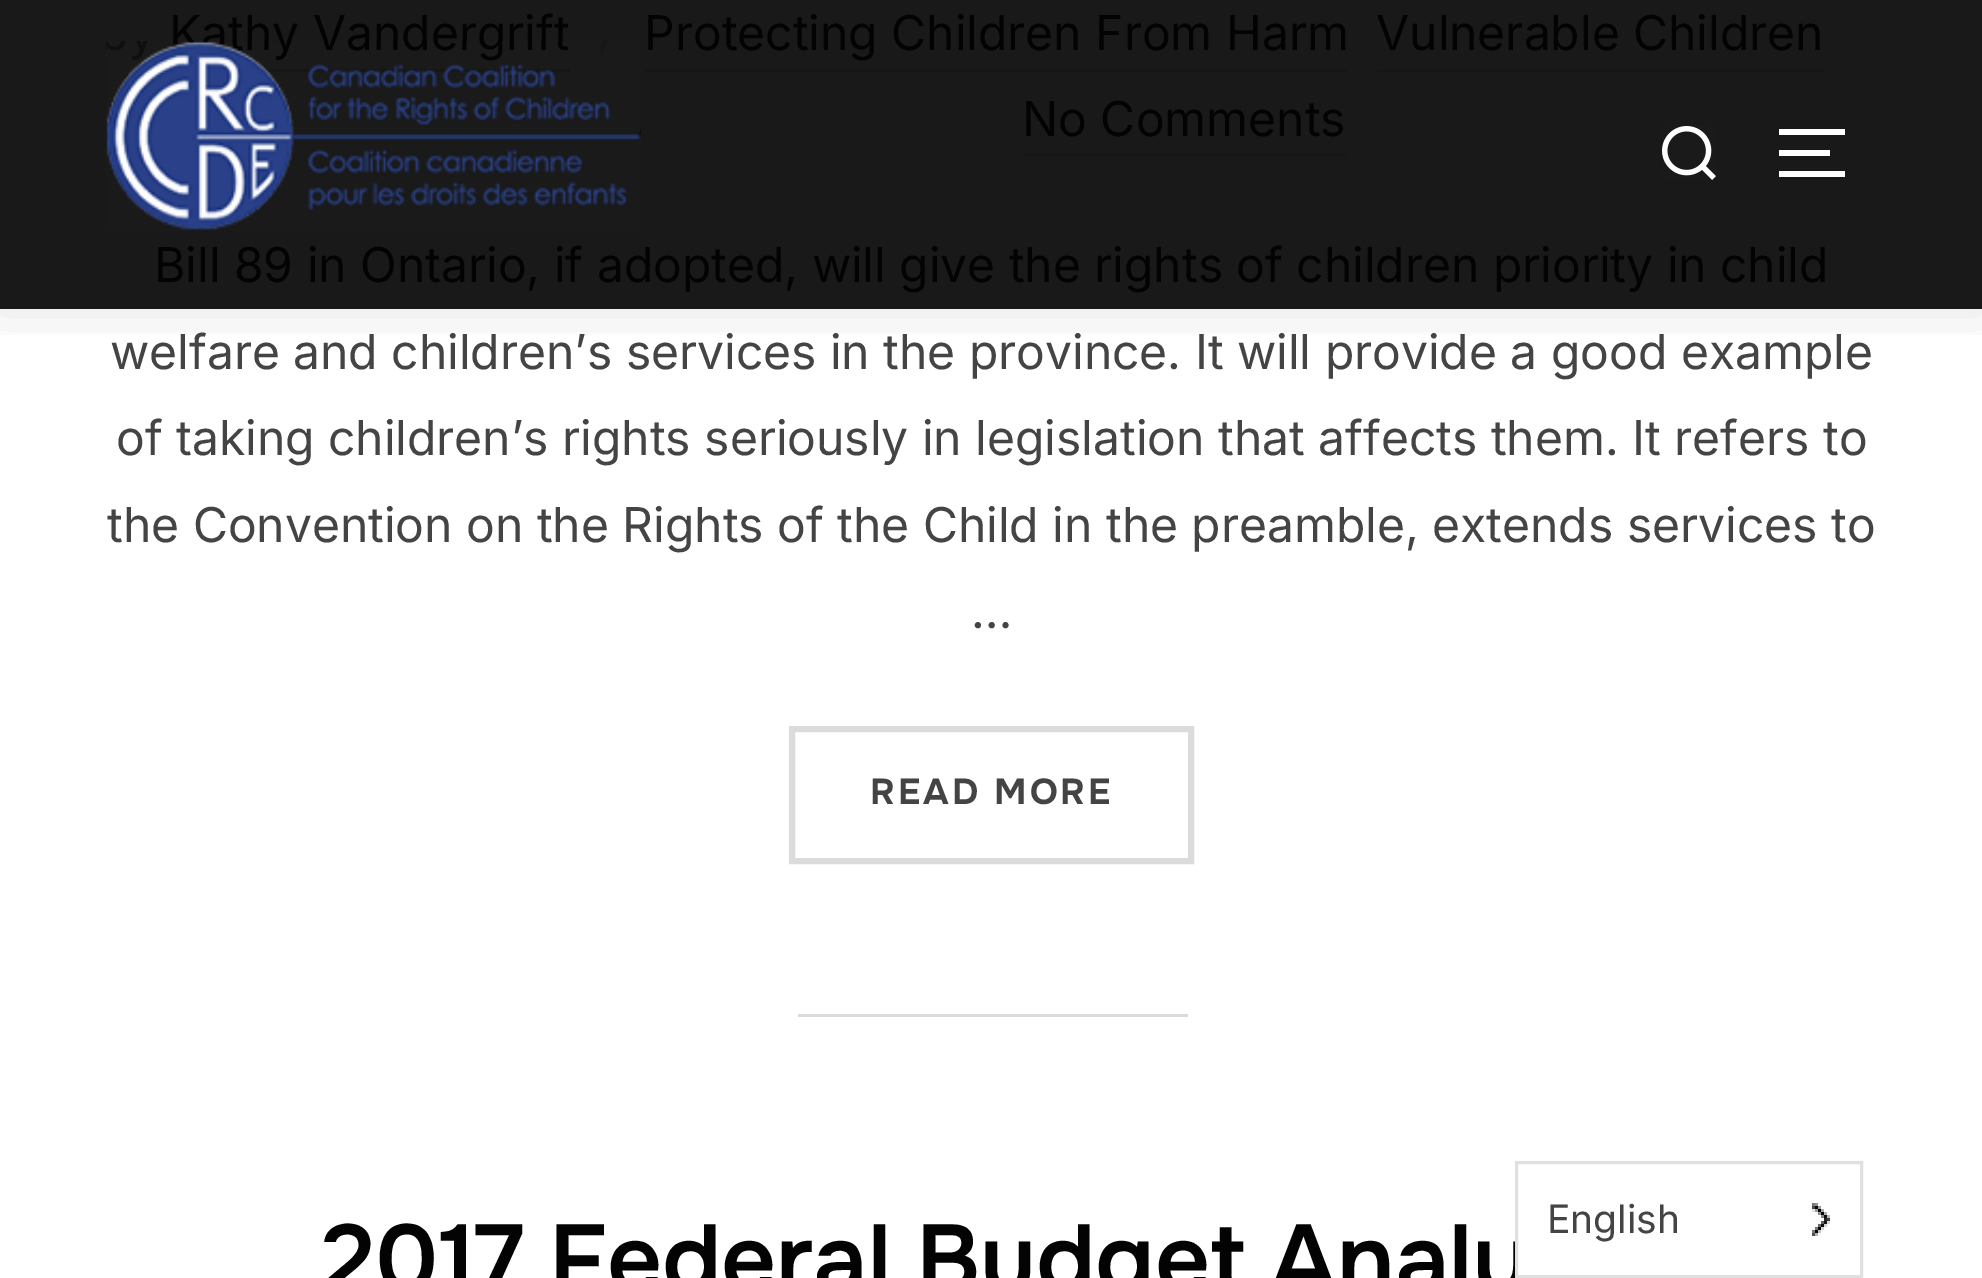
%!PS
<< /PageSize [1982 1278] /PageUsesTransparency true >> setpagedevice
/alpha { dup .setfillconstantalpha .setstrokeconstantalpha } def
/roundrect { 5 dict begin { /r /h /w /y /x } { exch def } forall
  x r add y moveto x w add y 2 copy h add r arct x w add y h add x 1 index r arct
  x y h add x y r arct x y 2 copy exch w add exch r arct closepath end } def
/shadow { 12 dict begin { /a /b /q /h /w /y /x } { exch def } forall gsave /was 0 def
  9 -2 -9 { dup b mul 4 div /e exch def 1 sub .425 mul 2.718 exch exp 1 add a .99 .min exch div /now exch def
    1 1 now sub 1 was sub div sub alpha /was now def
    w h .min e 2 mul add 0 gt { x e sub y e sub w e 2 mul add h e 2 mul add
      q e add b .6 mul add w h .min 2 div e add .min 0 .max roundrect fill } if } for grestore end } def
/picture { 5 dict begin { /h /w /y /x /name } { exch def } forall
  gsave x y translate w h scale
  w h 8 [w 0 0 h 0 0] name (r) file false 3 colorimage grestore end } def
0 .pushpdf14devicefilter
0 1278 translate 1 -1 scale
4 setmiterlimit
1 setgray
0 0 1982 1278 rectfill
0.098 setgray
0 0 1982 309 rectfill
0.086 setgray
261 69 309 3 rectfill
645 69 702 3 rectfill
1377 69 447 3 rectfill
1023 153 324 3 rectfill
gsave
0 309 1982 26 rectclip
0 setgray
-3 -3 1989 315 0 27 0.1 shadow
grestore
/Inter-Regular [48 0 0 -48 0 0] selectfont
0.012 setgray
169 50 moveto (Kathy Vandergrift) show
(img1.rgb) 106 41 535 190 picture
(img2.rgb) 1662 126 54 54 picture
1 setgray
1779 129 66 6 rectfill
1779 150 51 6 rectfill
1779 171 66 6 rectfill
0.012 setgray
644 50 moveto (Protecting Children From Harm) show
1376 50 moveto (Vulnerable Children) show
1022 136 moveto (No Comments) show
154 282 moveto (Bill 89 in Ontario, if adopted, will give the rights of children priority in child) show
0.267 setgray
110 369 moveto (welfare and children’s services in the province. It will provide a good example) show
116 455 moveto (of taking children’s rights seriously in legislation that affects them. It refers to) show
107 542 moveto (the Convention on the Rights of the Child in the preamble, extends services to) show
971 628 moveto (…) show
0.859 setgray
6 setlinewidth
792 729 399 132 rectstroke
/Onest-Bold [36 0 0 -36 0 0] selectfont
0.267 setgray
870 804 moveto 3 0 (READ MORE) ashow
0.859 setgray
798 1014 390 3 rectfill
/Onest-SemiBold [96 0 0 -96 0 0] selectfont
0.012 setgray
321 1292 moveto -1.5 0 32 (2017 Federal Budget Analy) widthshow
1 setgray
1518 1241 12 34 rectfill
0.878 setgray
3 setlinewidth
1516.5 1162.5 345 114 rectstroke
/Inter-Regular [39 0 0 -39 0 0] selectfont
0.267 setgray
1547 1233 moveto (English) show
(img3.rgb) 1812 1203 18 33 picture
.poppdf14devicefilter showpage
